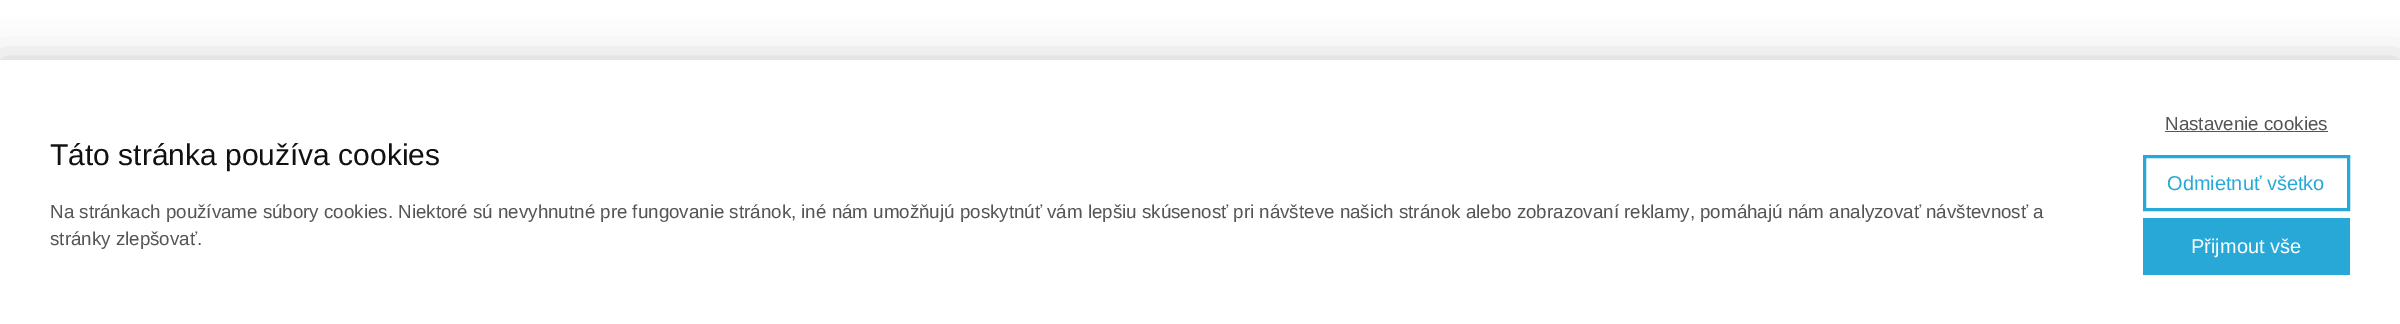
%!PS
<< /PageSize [2400 324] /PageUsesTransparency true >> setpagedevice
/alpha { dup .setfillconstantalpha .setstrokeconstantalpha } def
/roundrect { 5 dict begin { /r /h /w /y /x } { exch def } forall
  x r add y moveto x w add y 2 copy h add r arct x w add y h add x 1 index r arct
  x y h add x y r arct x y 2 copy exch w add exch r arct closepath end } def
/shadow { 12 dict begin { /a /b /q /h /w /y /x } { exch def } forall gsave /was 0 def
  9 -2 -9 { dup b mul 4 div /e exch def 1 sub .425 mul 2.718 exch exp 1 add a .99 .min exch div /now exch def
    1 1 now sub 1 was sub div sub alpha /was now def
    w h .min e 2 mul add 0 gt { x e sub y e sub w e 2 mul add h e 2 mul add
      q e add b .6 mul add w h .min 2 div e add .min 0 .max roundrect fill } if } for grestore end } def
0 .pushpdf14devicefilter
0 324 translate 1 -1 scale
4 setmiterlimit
1 setgray
0 0 2400 324 rectfill
0 setgray
0 60 2400 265 0 19 0.2 shadow
1 setgray
0 60 2400 264 rectfill
/LiberationSans-Regular [30 0 0 -30 0 0] selectfont
0.067 setgray
50 165 moveto (Táto stránka používa cookies) show
/LiberationSans-Regular [18.75 0 0 -18.75 0 0] selectfont
0.333 setgray
50 218 moveto (Na stránkach používame súbory cookies. Niektoré sú nevyhnutné pre fungovanie stránok, iné nám umožňujú poskytnúť vám lepšiu skúsenosť pri návšteve našich stránok alebo zobrazovaní reklamy, pomáhajú nám analyzovať návštevnosť a) show
50 245 moveto (stránky zlepšovať.) show
2165 130 moveto (Nastavenie cookies) show
2165 131 163 1 rectfill
0.153 0.659 0.843 setrgbcolor
3 setlinewidth
2144.5 156.5 204 53 rectstroke
/LiberationSans-Regular [20 0 0 -20 0 0] selectfont
2167 190 moveto (Odmietnuť všetko) show
2143 218 207 57 rectfill
1 setgray
2191 253 moveto (Přijmout vše) show
.poppdf14devicefilter showpage
